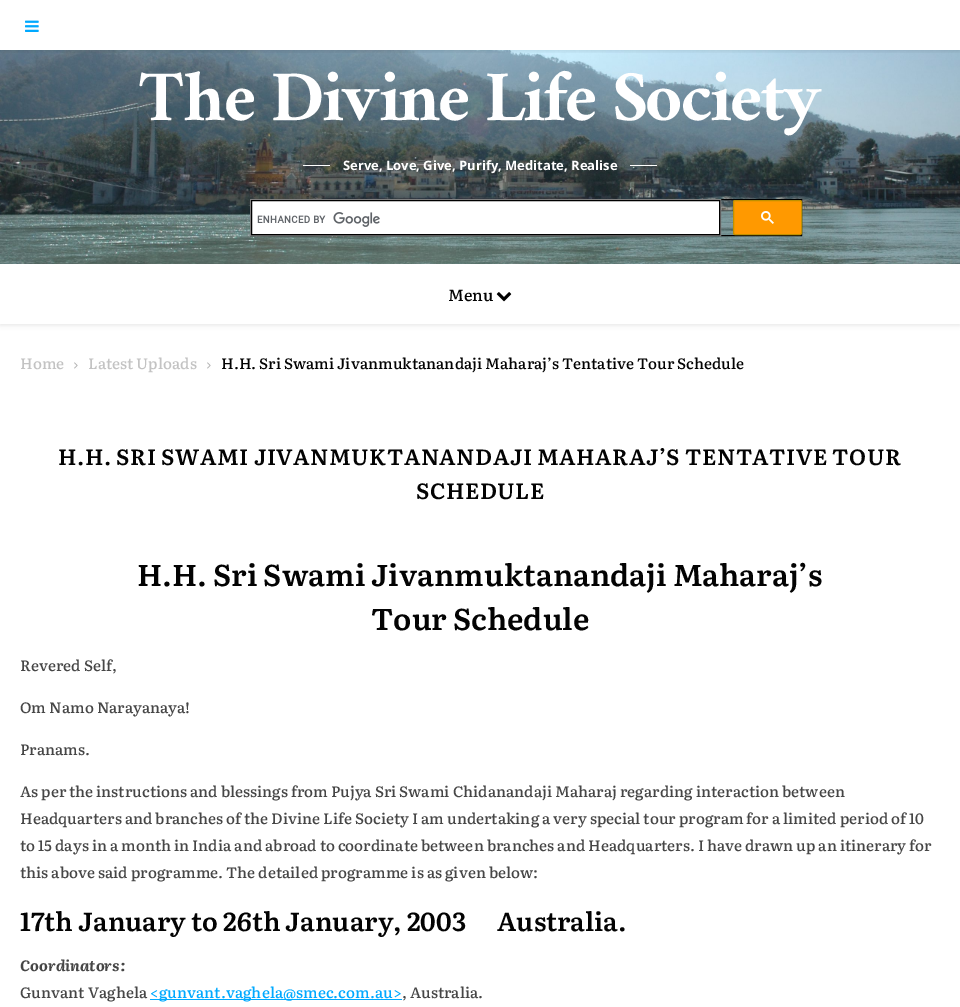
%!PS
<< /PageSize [960 1007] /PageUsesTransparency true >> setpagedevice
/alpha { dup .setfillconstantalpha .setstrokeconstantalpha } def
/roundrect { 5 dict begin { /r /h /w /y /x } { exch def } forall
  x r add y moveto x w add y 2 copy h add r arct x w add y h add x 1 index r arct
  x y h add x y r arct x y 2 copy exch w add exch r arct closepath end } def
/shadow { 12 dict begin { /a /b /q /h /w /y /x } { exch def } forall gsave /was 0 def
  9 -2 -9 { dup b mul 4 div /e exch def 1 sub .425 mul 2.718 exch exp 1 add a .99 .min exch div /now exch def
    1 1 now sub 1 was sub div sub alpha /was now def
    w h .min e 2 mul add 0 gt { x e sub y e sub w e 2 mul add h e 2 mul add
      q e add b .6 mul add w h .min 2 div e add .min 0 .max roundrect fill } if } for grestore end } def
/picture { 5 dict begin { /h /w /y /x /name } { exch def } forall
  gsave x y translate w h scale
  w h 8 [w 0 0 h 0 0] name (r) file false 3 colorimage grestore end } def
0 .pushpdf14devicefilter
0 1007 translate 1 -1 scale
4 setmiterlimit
1 setgray
0 0 960 1007 rectfill
(img2.rgb) 0 50 960 214 picture
gsave
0 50 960 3 rectclip
0 setgray
0 1 960 50 0 2.5 0.1 shadow
grestore
(img1.rgb) 25 20 14 12 picture
/Ramaraja-Regular [80 0 0 -80 0 0] selectfont
139 120 moveto (The Divine Life Society) show
303 165 27 1 rectfill
/OpenSans-Bold [13 0 0 -13 0 0] selectfont
343 170 moveto (Serve, Love, Give, Purify, Meditate, Realise) show
630 165 27 1 rectfill
0 setgray
250.5 199.5 551 36 rectstroke
1 setgray
252 201 467 33 rectfill
0.502 setgray
250.5 199.5 470 36 rectstroke
0 setgray
251.5 200.5 468 34 rectstroke
(img3.rgb) 257 212 123 15 picture
1 0.6 0 setrgbcolor
733.5 200.5 68 34 1.5 roundrect gsave fill grestore
0.749 0.565 0 setrgbcolor
stroke
(img4.rgb) 761 211 13 13 picture
gsave
newpath 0 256 moveto 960 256 lineto 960 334 lineto 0 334 lineto closepath 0 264 moveto 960 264 lineto 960 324 lineto 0 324 lineto closepath eoclip newpath
0 setgray
0 265 960 60 0 2.5 0.1 shadow
grestore
/Literata-Medium [16 0 0 -16 0 0] selectfont
0.012 setgray
448 301 moveto (Menu) show
(img5.rgb) 496 292 16 10 picture
/Literata-Medium [15 0 0 -15 0 0] selectfont
0.765 setgray
20 369 moveto (Home) show
(img6.rgb) 74 362 4 7 picture
88 369 moveto (Latest Uploads) show
(img6.rgb) 207 362 4 7 picture
0.012 setgray
221 369 moveto (H.H. Sri Swami Jivanmuktanandaji Maharaj’s Tentative Tour Schedule) show
/Literata-SemiBold [22 0 0 -22 0 0] selectfont
58 465 moveto 0.5 0 (H.H. SRI SWAMI JIVANMUKTANANDAJI MAHARAJ’S TENTATIVE TOUR) ashow
416 499 moveto 0.5 0 (SCHEDULE) ashow
/Literata-SemiBold [30 0 0 -30 0 0] selectfont
137 586 moveto (H.H. Sri Swami Jivanmuktanandaji Maharaj’s) show
371 630 moveto (Tour Schedule) show
/Literata-Medium [15 0 0 -15 0 0] selectfont
0.275 setgray
20 671 moveto (Revered Self,) show
20 713 moveto (Om Namo Narayanaya!) show
20 755 moveto (Pranams.) show
20 797 moveto (As per the instructions and blessings from Pujya Sri Swami Chidanandaji Maharaj regarding interaction between) show
20 824 moveto (Headquarters and branches of the Divine Life Society I am undertaking a very special tour program for a limited period of 10) show
20 851 moveto (to 15 days in a month in India and abroad to coordinate between branches and Headquarters. I have drawn up an itinerary for) show
20 878 moveto (this above said programme. The detailed programme is as given below:) show
/Literata-SemiBold [26 0 0 -26 0 0] selectfont
0.012 setgray
20 931 moveto (17th January to 26th January, 2003) show
497 931 moveto (Australia.) show
/Literata-BoldItalic [15 0 0 -15 0 0] selectfont
0.275 setgray
20 971 moveto (Coordinators:) show
/Literata-Medium [15 0 0 -15 0 0] selectfont
20 998 moveto (Gunvant Vaghela) show
0 0.663 1 setrgbcolor
150 999 252 1 rectfill
150 998 moveto (<gunvant.vaghela@smec.com.au>) show
0.275 setgray
402 998 moveto (, Australia.) show
.poppdf14devicefilter showpage
